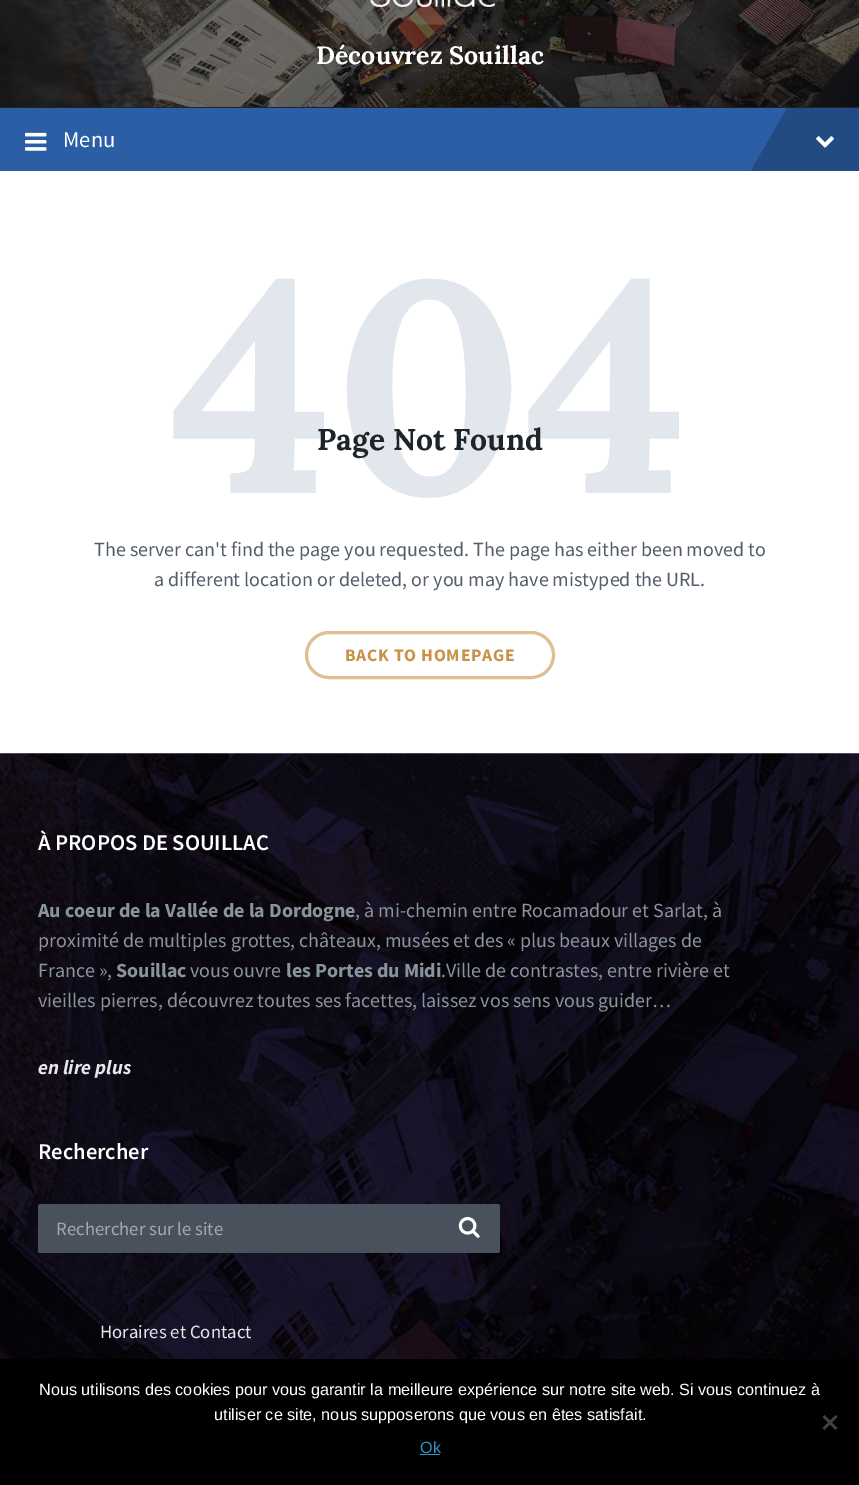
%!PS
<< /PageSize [859 1485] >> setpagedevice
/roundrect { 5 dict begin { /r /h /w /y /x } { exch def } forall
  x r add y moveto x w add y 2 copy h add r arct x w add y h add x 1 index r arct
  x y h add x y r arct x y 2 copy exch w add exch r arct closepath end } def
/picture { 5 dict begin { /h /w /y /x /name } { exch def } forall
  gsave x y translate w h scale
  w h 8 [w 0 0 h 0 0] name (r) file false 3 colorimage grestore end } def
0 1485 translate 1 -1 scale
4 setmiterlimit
1 setgray
0 0 859 1485 rectfill
0.118 0.141 0.153 setrgbcolor
0 107 859 1 rectfill
(img1.rgb) 0 0 859 107 picture
(img2.rgb) 370 0 126 7 picture
/Lora-Bold [25 0 0 -25 0 0] selectfont
1 setgray
316 64 moveto (Découvrez Souillac) show
0.169 0.369 0.643 setrgbcolor
0 108 787 63 rectfill
(img3.rgb) 25 132 22 19 picture
/SourceSansPro-Regular [22.5 0 0 -22.5 0 0] selectfont
1 setgray
63 147 moveto (Menu) show
gsave
0 108 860 63 rectclip
0.133 0.294 0.514 setrgbcolor
newpath 811 66 moveto 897 116 lineto 834 226 lineto 748 176 lineto closepath fill
grestore
(img4.rgb) 816 136 18 12 picture
/Lora-Bold [300 0 0 -300 0 0] selectfont
0.882 0.906 0.925 setrgbcolor
170 493 moveto (404) show
/Lora-Bold [30 0 0 -30 0 0] selectfont
0.118 0.141 0.153 setrgbcolor
317 450 moveto (Page Not Found) show
/SourceSansPro-Regular [20 0 0 -20 0 0] selectfont
0.329 0.369 0.412 setrgbcolor
94 556 moveto (The server can't find the page you requested. The page has either been moved to) show
154 586 moveto (a different location or deleted, or you may have mistyped the URL.) show
0.875 0.745 0.573 setrgbcolor
3 setlinewidth
306.5 632.5 247 45 22.5 roundrect stroke
/SourceSansPro-Bold [17.5 0 0 -17.5 0 0] selectfont
0.788 0.573 0.29 setrgbcolor
345 661 moveto 0.75 0 (BACK TO HOMEPAGE) ashow
(img5.rgb) 0 753 859 606 picture
/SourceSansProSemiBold-SemiBold [22.5 0 0 -22.5 0 0] selectfont
1 setgray
38 850 moveto (À PROPOS DE SOUILLAC) show
/SourceSansPro-Bold [20 0 0 -20 0 0] selectfont
0.541 0.58 0.608 setrgbcolor
38 917 moveto (Au coeur de la Vallée de la Dordogne) show
/SourceSansPro-Regular [20 0 0 -20 0 0] selectfont
355 917 moveto (, à mi-chemin entre Rocamadour et Sarlat, à) show
38 947 moveto (proximité de multiples grottes, châteaux, musées et des « plus beaux villages de) show
38 977 moveto (France »,) show
/SourceSansPro-Bold [20 0 0 -20 0 0] selectfont
116 977 moveto (Souillac) show
/SourceSansPro-Regular [20 0 0 -20 0 0] selectfont
190 977 moveto (vous ouvre) show
/SourceSansPro-Bold [20 0 0 -20 0 0] selectfont
286 977 moveto (les Portes du Midi) show
/SourceSansPro-Regular [20 0 0 -20 0 0] selectfont
441 977 moveto (.Ville de contrastes, entre rivière et) show
38 1007 moveto (vieilles pierres, découvrez toutes ses facettes, laissez vos sens vous guider…) show
/SourceSansPro-BoldItalic [20 0 0 -20 0 0] selectfont
0.882 0.906 0.925 setrgbcolor
38 1074 moveto (en lire plus) show
/SourceSansProSemiBold-SemiBold [22.5 0 0 -22.5 0 0] selectfont
1 setgray
38 1159 moveto (Rechercher) show
0.286 0.322 0.361 setrgbcolor
38 1204 462 49 2.5 roundrect fill
/SourceSansPro-Regular [18.75 0 0 -18.75 0 0] selectfont
0.643 0.663 0.682 setrgbcolor
56 1235 moveto (Rechercher sur le site) show
(img6.rgb) 458 1217 22 21 picture
0.882 0.906 0.925 setrgbcolor
100 1338 moveto (Horaires et Contact) show
0 setgray
0 1359 859 126 rectfill
/LiberationSans-Regular [16.25 0 0 -16.25 0 0] selectfont
1 setgray
39 1395 moveto (Nous utilisons des cookies pour vous garantir la meilleure expérience sur notre site web. Si vous continuez à) show
214 1420 moveto (utiliser ce site, nous supposerons que vous en êtes satisfait.) show
0.251 setgray
newpath 835.5 1415 moveto 837.5 1417 lineto 824.5 1430 lineto 822.5 1428 lineto closepath fill
newpath 822.5 1417 moveto 824.5 1415 lineto 837.5 1428 lineto 835.5 1430 lineto closepath fill
0.176 0.576 0.773 setrgbcolor
420 1453 moveto (Ok) show
420 1454 20 1 rectfill
showpage
